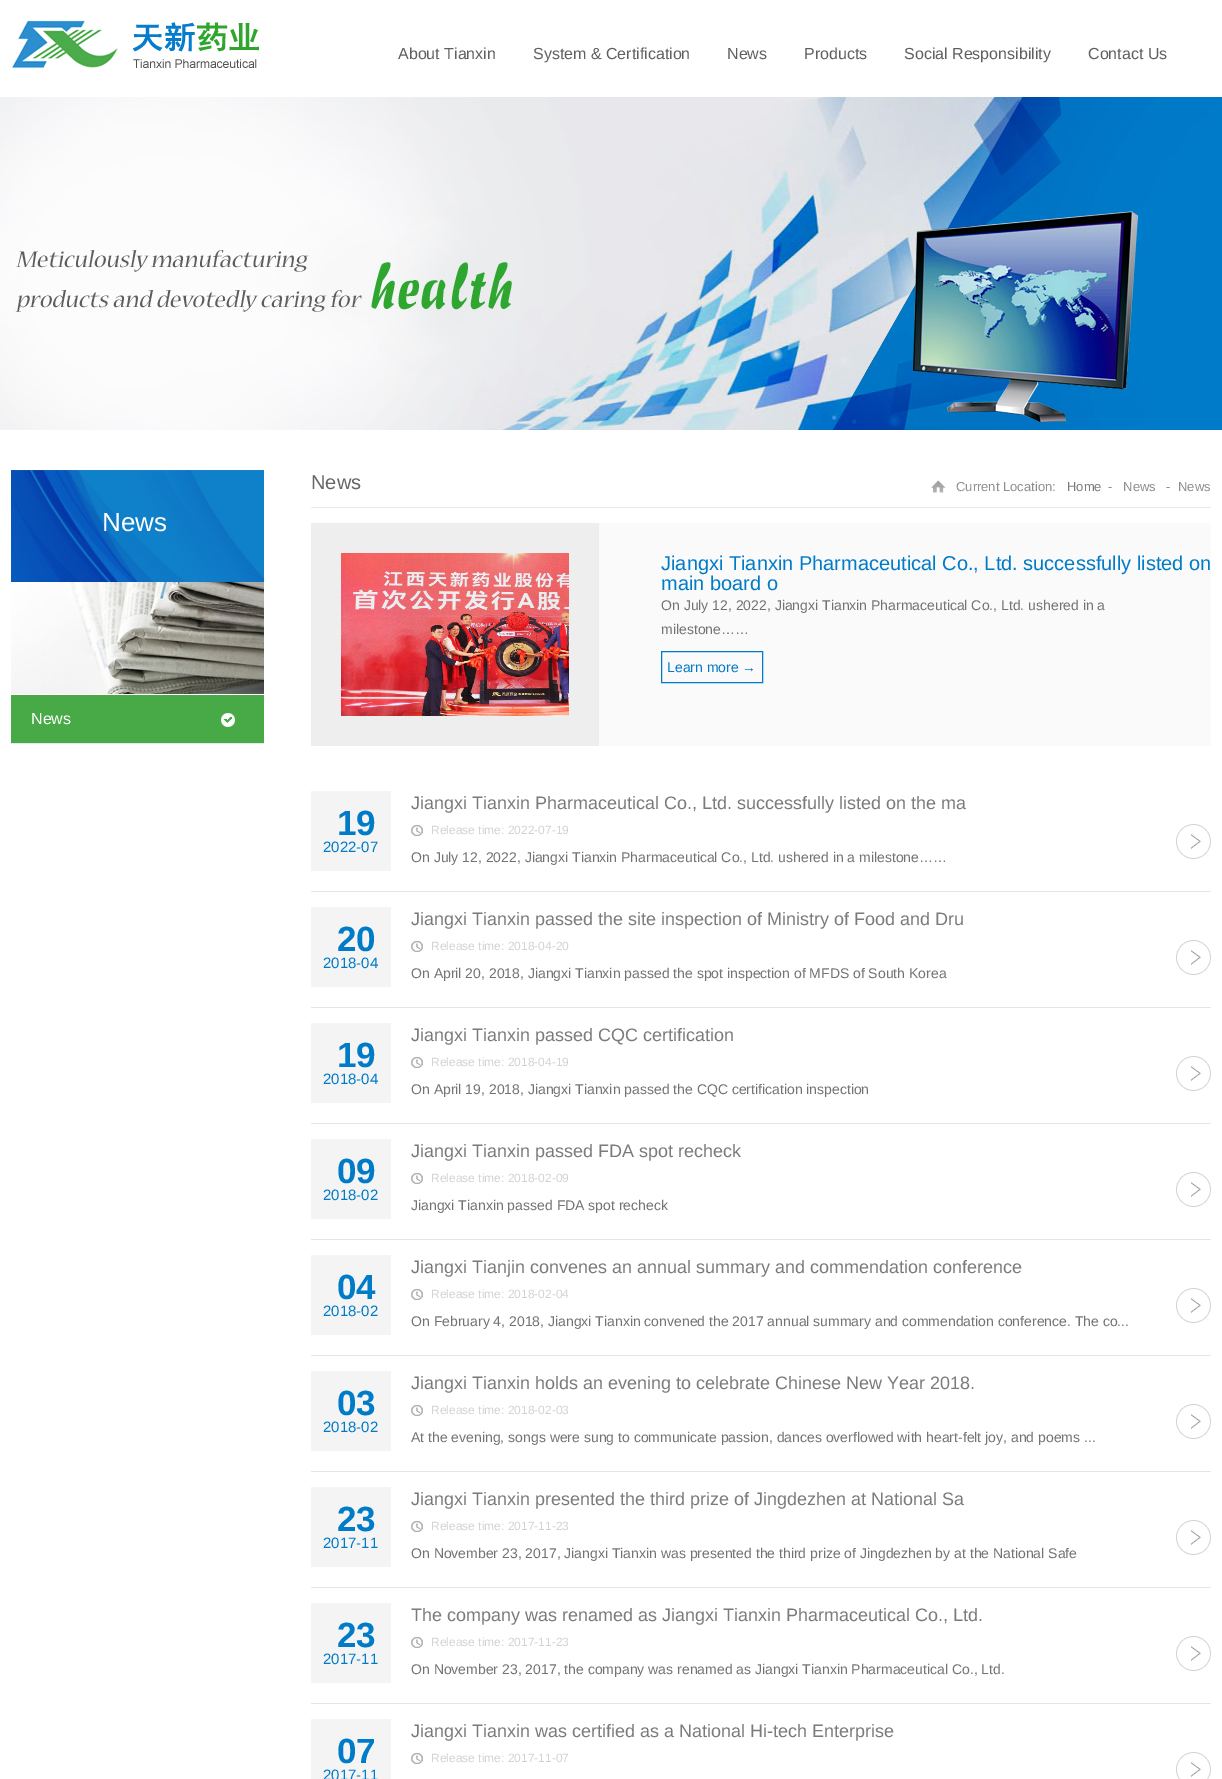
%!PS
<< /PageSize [1222 1779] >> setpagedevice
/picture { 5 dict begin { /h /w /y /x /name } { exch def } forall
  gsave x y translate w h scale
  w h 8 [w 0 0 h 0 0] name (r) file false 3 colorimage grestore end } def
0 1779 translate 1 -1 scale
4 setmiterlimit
1 setgray
0 0 1222 1779 rectfill
(img1.rgb) 11 20 248 49 picture
/LiberationSans-Regular [16 0 0 -16 0 0] selectfont
0.376 setgray
398 59 moveto (About Tianxin) show
533 59 moveto (System & Certification) show
727 59 moveto (News) show
804 59 moveto (Products) show
904 59 moveto (Social Responsibility) show
1088 59 moveto (Contact Us) show
(img2.rgb) 0 97 1222 333 picture
(img3.rgb) 11 470 253 112 picture
/LiberationSans-Regular [26 0 0 -26 0 0] selectfont
1 setgray
102 531 moveto (News) show
(img4.rgb) 11 582 253 112 picture
0.278 0.667 0.275 setrgbcolor
11 695 253 48 rectfill
(img5.rgb) 221 713 14 14 picture
0.91 setgray
11 743 253 1 rectfill
/LiberationSans-Regular [16 0 0 -16 0 0] selectfont
1 setgray
31 724 moveto (News) show
0.91 setgray
311 507 900 1 rectfill
/LiberationSans-Regular [20 0 0 -20 0 0] selectfont
0.4 setgray
311 489 moveto (News) show
(img6.rgb) 931 480 15 13 picture
/LiberationSans-Regular [13 0 0 -13 0 0] selectfont
0.557 setgray
956 491 moveto (Current Location:) show
0.482 setgray
1067 491 moveto (Home) show
0.557 setgray
1108 491 moveto (-   News   -  News) show
0.98 setgray
599 523 612 223 rectfill
0.933 setgray
311 523 288 223 rectfill
(img7.rgb) 341 553 228 163 picture
/LiberationSans-Regular [20 0 0 -20 0 0] selectfont
0 0.482 0.784 setrgbcolor
661 570 moveto (Jiangxi Tianxin Pharmaceutical Co., Ltd. successfully listed on) show
661 590 moveto (main board o) show
/LiberationSans-Regular [14 0 0 -14 0 0] selectfont
0.451 setgray
661 610 moveto (On July 12, 2022, Jiangxi Tianxin Pharmaceutical Co., Ltd. ushered in a) show
661 634 moveto (milestone……) show
0 0.482 0.784 setrgbcolor
661.5 651.5 101 31 rectstroke
667 672 moveto (Learn more →) show
(img8.rgb) 1176 824 35 35 picture
0.898 setgray
311 891 900 1 rectfill
0.957 setgray
311 791 80 80 rectfill
/LiberationSans-Bold [35 0 0 -35 0 0] selectfont
0 0.482 0.784 setrgbcolor
337 835 moveto (19) show
/LiberationSans-Regular [15 0 0 -15 0 0] selectfont
323 852 moveto (2022-07) show
/LiberationSans-Regular [18 0 0 -18 0 0] selectfont
0.482 setgray
411 809 moveto (Jiangxi Tianxin Pharmaceutical Co., Ltd. successfully listed on the ma) show
(img9.rgb) 411 825 12 11 picture
/LiberationSans-Regular [12 0 0 -12 0 0] selectfont
0.827 setgray
431 834 moveto (Release time: 2022-07-19) show
/LiberationSans-Regular [14 0 0 -14 0 0] selectfont
0.451 setgray
411 862 moveto (On July 12, 2022, Jiangxi Tianxin Pharmaceutical Co., Ltd. ushered in a milestone……) show
(img8.rgb) 1176 940 35 35 picture
0.898 setgray
311 1007 900 1 rectfill
0.957 setgray
311 907 80 80 rectfill
/LiberationSans-Bold [35 0 0 -35 0 0] selectfont
0 0.482 0.784 setrgbcolor
337 951 moveto (20) show
/LiberationSans-Regular [15 0 0 -15 0 0] selectfont
323 968 moveto (2018-04) show
/LiberationSans-Regular [18 0 0 -18 0 0] selectfont
0.482 setgray
411 925 moveto (Jiangxi Tianxin passed the site inspection of Ministry of Food and Dru) show
(img9.rgb) 411 941 12 11 picture
/LiberationSans-Regular [12 0 0 -12 0 0] selectfont
0.827 setgray
431 950 moveto (Release time: 2018-04-20) show
/LiberationSans-Regular [14 0 0 -14 0 0] selectfont
0.451 setgray
411 978 moveto (On April 20, 2018, Jiangxi Tianxin passed the spot inspection of MFDS of South Korea) show
(img8.rgb) 1176 1056 35 35 picture
0.898 setgray
311 1123 900 1 rectfill
0.957 setgray
311 1023 80 80 rectfill
/LiberationSans-Bold [35 0 0 -35 0 0] selectfont
0 0.482 0.784 setrgbcolor
337 1067 moveto (19) show
/LiberationSans-Regular [15 0 0 -15 0 0] selectfont
323 1084 moveto (2018-04) show
/LiberationSans-Regular [18 0 0 -18 0 0] selectfont
0.482 setgray
411 1041 moveto (Jiangxi Tianxin passed CQC certification) show
(img9.rgb) 411 1057 12 11 picture
/LiberationSans-Regular [12 0 0 -12 0 0] selectfont
0.827 setgray
431 1066 moveto (Release time: 2018-04-19) show
/LiberationSans-Regular [14 0 0 -14 0 0] selectfont
0.451 setgray
411 1094 moveto (On April 19, 2018, Jiangxi Tianxin passed the CQC certification inspection) show
(img8.rgb) 1176 1172 35 35 picture
0.898 setgray
311 1239 900 1 rectfill
0.957 setgray
311 1139 80 80 rectfill
/LiberationSans-Bold [35 0 0 -35 0 0] selectfont
0 0.482 0.784 setrgbcolor
337 1183 moveto (09) show
/LiberationSans-Regular [15 0 0 -15 0 0] selectfont
323 1200 moveto (2018-02) show
/LiberationSans-Regular [18 0 0 -18 0 0] selectfont
0.482 setgray
411 1157 moveto (Jiangxi Tianxin passed FDA spot recheck) show
(img9.rgb) 411 1173 12 11 picture
/LiberationSans-Regular [12 0 0 -12 0 0] selectfont
0.827 setgray
431 1182 moveto (Release time: 2018-02-09) show
/LiberationSans-Regular [14 0 0 -14 0 0] selectfont
0.451 setgray
411 1210 moveto (Jiangxi Tianxin passed FDA spot recheck) show
(img8.rgb) 1176 1288 35 35 picture
0.898 setgray
311 1355 900 1 rectfill
0.957 setgray
311 1255 80 80 rectfill
/LiberationSans-Bold [35 0 0 -35 0 0] selectfont
0 0.482 0.784 setrgbcolor
337 1299 moveto (04) show
/LiberationSans-Regular [15 0 0 -15 0 0] selectfont
323 1316 moveto (2018-02) show
/LiberationSans-Regular [18 0 0 -18 0 0] selectfont
0.482 setgray
411 1273 moveto (Jiangxi Tianjin convenes an annual summary and commendation conference) show
(img9.rgb) 411 1289 12 11 picture
/LiberationSans-Regular [12 0 0 -12 0 0] selectfont
0.827 setgray
431 1298 moveto (Release time: 2018-02-04) show
/LiberationSans-Regular [14 0 0 -14 0 0] selectfont
0.451 setgray
411 1326 moveto (On February 4, 2018, Jiangxi Tianxin convened the 2017 annual summary and commendation conference. The co...) show
(img8.rgb) 1176 1404 35 35 picture
0.898 setgray
311 1471 900 1 rectfill
0.957 setgray
311 1371 80 80 rectfill
/LiberationSans-Bold [35 0 0 -35 0 0] selectfont
0 0.482 0.784 setrgbcolor
337 1415 moveto (03) show
/LiberationSans-Regular [15 0 0 -15 0 0] selectfont
323 1432 moveto (2018-02) show
/LiberationSans-Regular [18 0 0 -18 0 0] selectfont
0.482 setgray
411 1389 moveto (Jiangxi Tianxin holds an evening to celebrate Chinese New Year 2018.) show
(img9.rgb) 411 1405 12 11 picture
/LiberationSans-Regular [12 0 0 -12 0 0] selectfont
0.827 setgray
431 1414 moveto (Release time: 2018-02-03) show
/LiberationSans-Regular [14 0 0 -14 0 0] selectfont
0.451 setgray
411 1442 moveto (At the evening, songs were sung to communicate passion, dances overflowed with heart-felt joy, and poems ...) show
(img8.rgb) 1176 1520 35 35 picture
0.898 setgray
311 1587 900 1 rectfill
0.957 setgray
311 1487 80 80 rectfill
/LiberationSans-Bold [35 0 0 -35 0 0] selectfont
0 0.482 0.784 setrgbcolor
337 1531 moveto (23) show
/LiberationSans-Regular [15 0 0 -15 0 0] selectfont
323 1548 moveto (2017-11) show
/LiberationSans-Regular [18 0 0 -18 0 0] selectfont
0.482 setgray
411 1505 moveto (Jiangxi Tianxin presented the third prize of Jingdezhen at National Sa) show
(img9.rgb) 411 1521 12 11 picture
/LiberationSans-Regular [12 0 0 -12 0 0] selectfont
0.827 setgray
431 1530 moveto (Release time: 2017-11-23) show
/LiberationSans-Regular [14 0 0 -14 0 0] selectfont
0.451 setgray
411 1558 moveto (On November 23, 2017, Jiangxi Tianxin was presented the third prize of Jingdezhen by at the National Safe) show
(img8.rgb) 1176 1636 35 35 picture
0.898 setgray
311 1703 900 1 rectfill
0.957 setgray
311 1603 80 80 rectfill
/LiberationSans-Bold [35 0 0 -35 0 0] selectfont
0 0.482 0.784 setrgbcolor
337 1647 moveto (23) show
/LiberationSans-Regular [15 0 0 -15 0 0] selectfont
323 1664 moveto (2017-11) show
/LiberationSans-Regular [18 0 0 -18 0 0] selectfont
0.482 setgray
411 1621 moveto (The company was renamed as Jiangxi Tianxin Pharmaceutical Co., Ltd.) show
(img9.rgb) 411 1637 12 11 picture
/LiberationSans-Regular [12 0 0 -12 0 0] selectfont
0.827 setgray
431 1646 moveto (Release time: 2017-11-23) show
/LiberationSans-Regular [14 0 0 -14 0 0] selectfont
0.451 setgray
411 1674 moveto (On November 23, 2017, the company was renamed as Jiangxi Tianxin Pharmaceutical Co., Ltd.) show
(img10.rgb) 1176 1752 35 27 picture
0.957 setgray
311 1719 80 60 rectfill
/LiberationSans-Bold [35 0 0 -35 0 0] selectfont
0 0.482 0.784 setrgbcolor
337 1763 moveto (07) show
/LiberationSans-Regular [15 0 0 -15 0 0] selectfont
323 1780 moveto (2017-11) show
/LiberationSans-Regular [18 0 0 -18 0 0] selectfont
0.482 setgray
411 1737 moveto (Jiangxi Tianxin was certified as a National Hi-tech Enterprise) show
(img9.rgb) 411 1753 12 11 picture
/LiberationSans-Regular [12 0 0 -12 0 0] selectfont
0.827 setgray
431 1762 moveto (Release time: 2017-11-07) show
showpage
